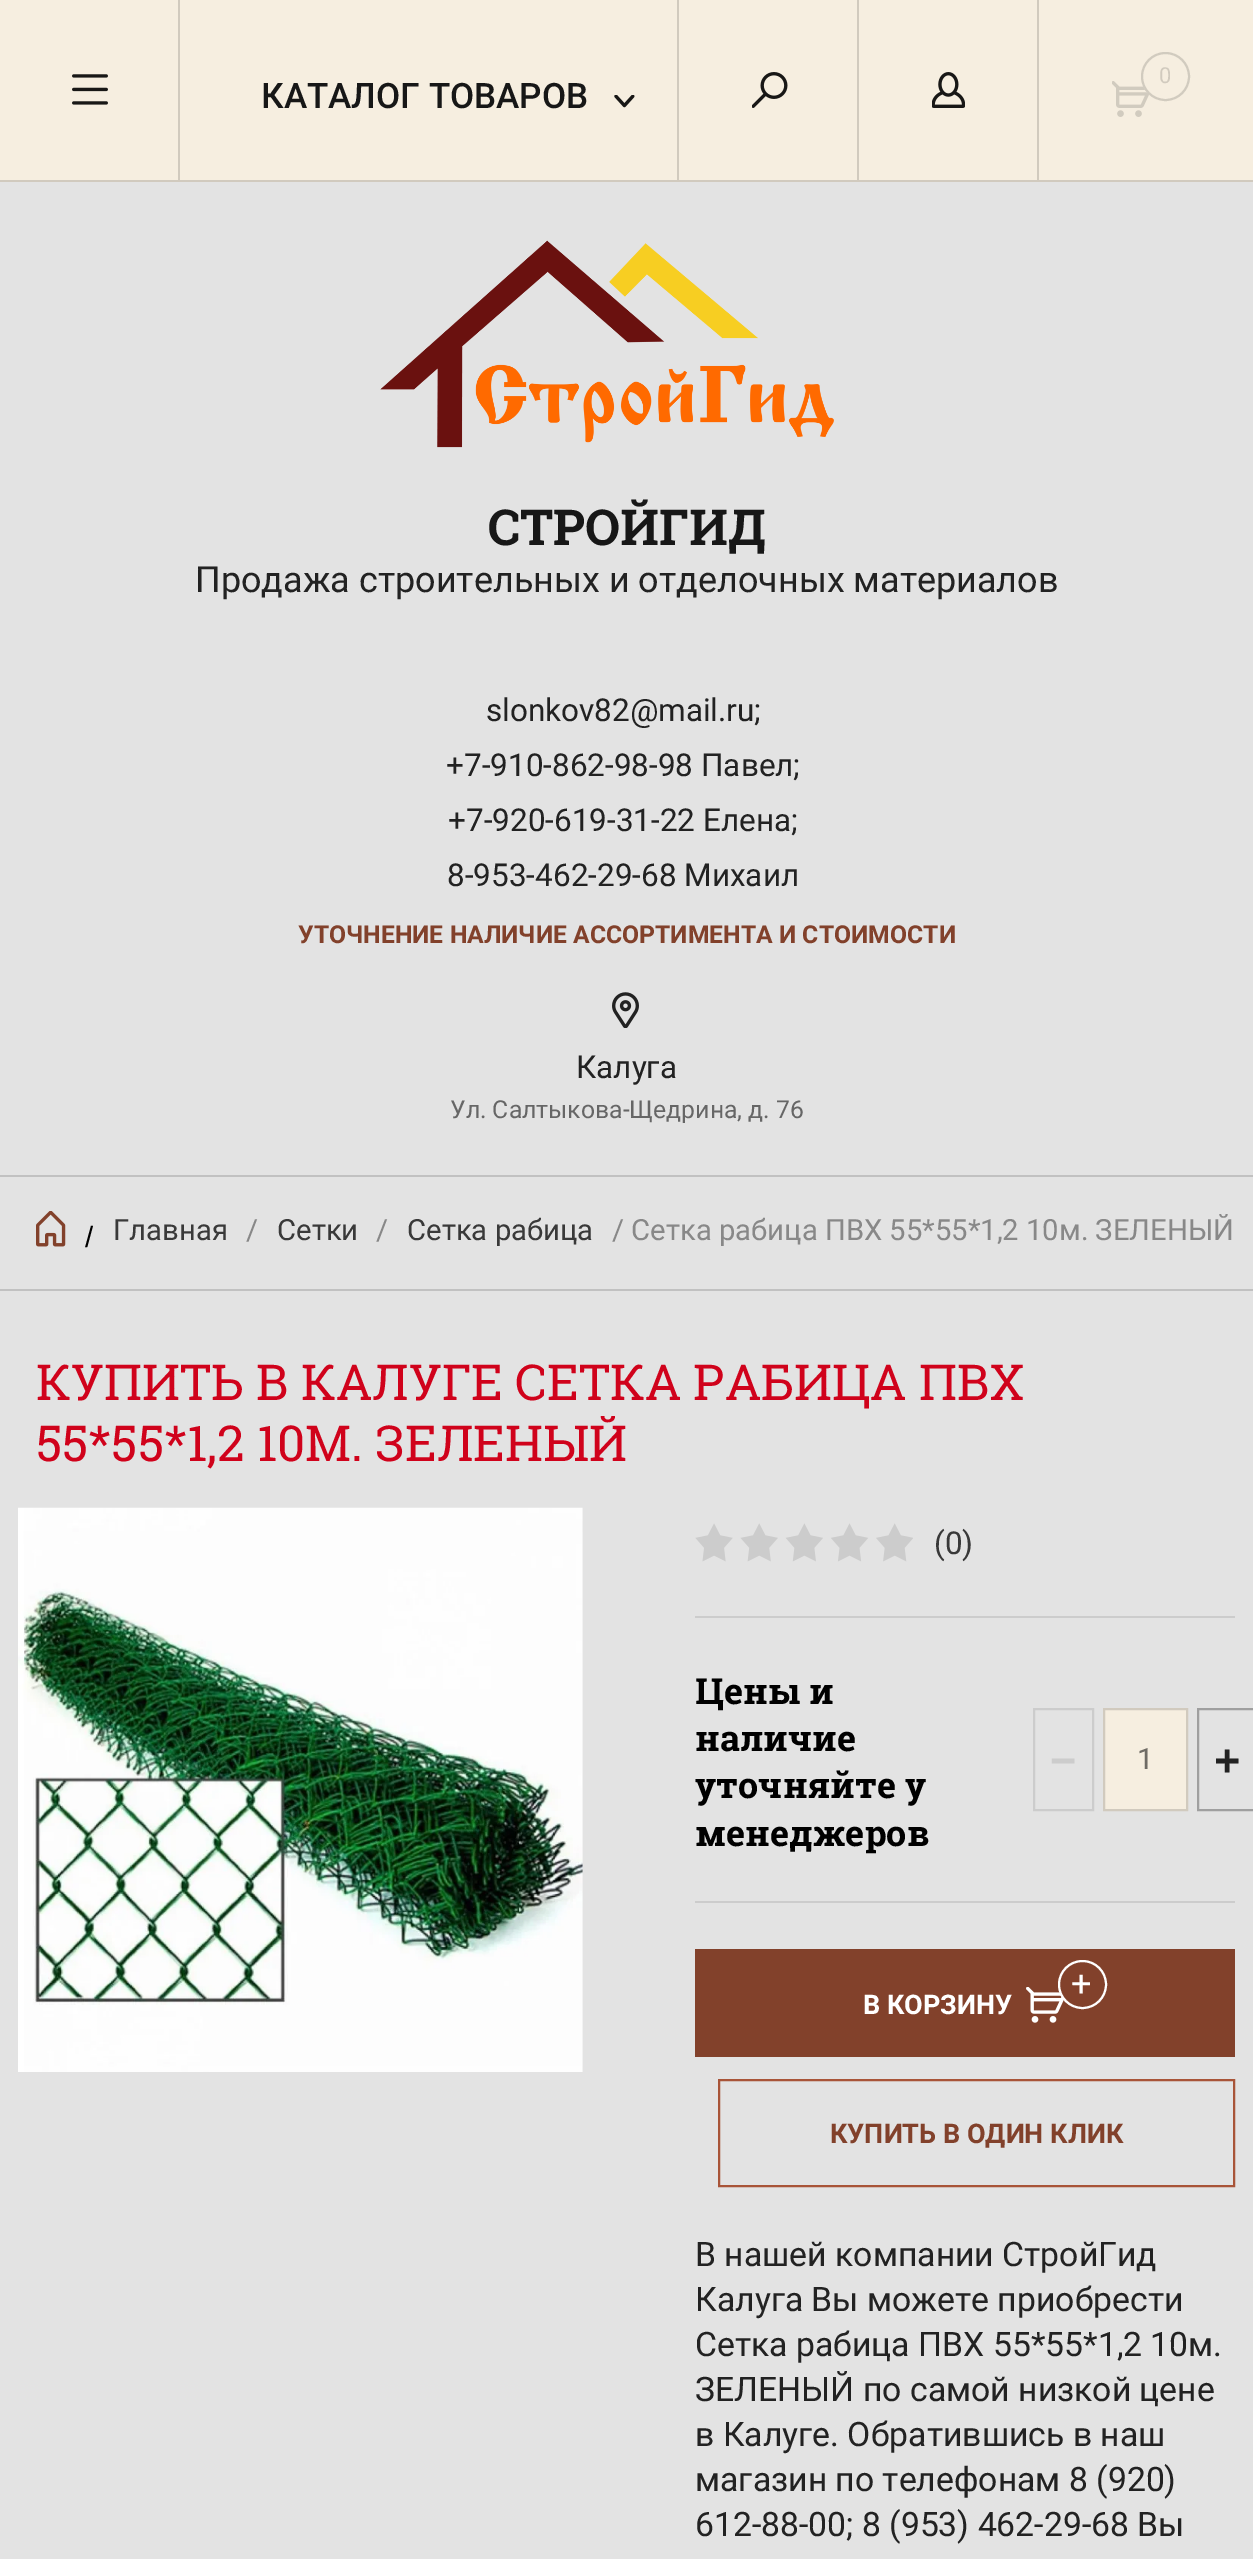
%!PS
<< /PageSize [1253 2559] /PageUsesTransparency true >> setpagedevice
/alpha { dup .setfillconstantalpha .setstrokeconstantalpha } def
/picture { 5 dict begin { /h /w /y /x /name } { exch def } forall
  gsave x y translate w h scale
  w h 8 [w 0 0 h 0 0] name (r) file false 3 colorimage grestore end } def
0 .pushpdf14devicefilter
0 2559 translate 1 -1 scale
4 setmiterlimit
0.89 setgray
0 0 1253 2559 rectfill
0.965 0.933 0.878 setrgbcolor
0 0 1253 180 rectfill
0.82 0.792 0.745 setrgbcolor
0 180 1253 2 rectfill
(img1.rgb) 72 74 36 31 picture
178 0 2 180 rectfill
677 0 2 180 rectfill
(img2.rgb) 752 72 36 36 picture
(img3.rgb) 932 72 33 36 picture
857 0 2 180 rectfill
(img4.rgb) 1112 81 38 36 picture
1037 0 2 180 rectfill
0.965 0.933 0.878 setrgbcolor
newpath 1165.5 76.5 24.5 0 360 arc closepath fill
0.15 alpha
0 setgray
2 setlinewidth
newpath 1165.5 76.5 23.5 0 360 arc closepath stroke
/Roboto-Regular [22 0 0 -22 0 0] selectfont
1 alpha
0.82 0.792 0.745 setrgbcolor
1159 83 moveto (0) show
/Roboto-Medium [35 0 0 -35 0 0] selectfont
0.09 setgray
261 108 moveto (КАТАЛОГ ТОВАРОВ) show
(img5.rgb) 614 95 21 13 picture
(img6.rgb) 380 240 454 208 picture
/RobotoSlab-Bold [49.5 0 0 -49.5 0 0] selectfont
488 545 moveto (СТРОЙГИД) show
/Roboto-Regular [36 0 0 -36 0 0] selectfont
0.133 setgray
195 592 moveto (Продажа строительных и отделочных материалов) show
/Roboto-Regular [31.5 0 0 -31.5 0 0] selectfont
486 721 moveto (slonkov82@mail.ru;) show
446 776 moveto (+7-910-862-98-98 Павел;) show
448 831 moveto (+7-920-619-31-22 Елена;) show
447 886 moveto (8-953-462-29-68 Михаил) show
/Roboto-Bold [24.75 0 0 -24.75 0 0] selectfont
0.51 0.255 0.169 setrgbcolor
298 943 moveto (УТОЧНЕНИЕ НАЛИЧИЕ АССОРТИМЕНТА И СТОИМОСТИ) show
(img7.rgb) 612 992 27 36 picture
/Roboto-Regular [31.5 0 0 -31.5 0 0] selectfont
0.133 setgray
576 1078 moveto (Калуга) show
/Roboto-Regular [24.75 0 0 -24.75 0 0] selectfont
0.4 setgray
450 1118 moveto (Ул. Салтыкова-Щедрина, д. 76) show
0.757 setgray
0 1175 1253 2 rectfill
0 1289 1253 2 rectfill
(img8.rgb) 36 1211 30 36 picture
/LiberationSans-Regular [29.25 0 0 -29.25 0 0] selectfont
0 setgray
85 1247 moveto (/) show
/Roboto-Regular [29.25 0 0 -29.25 0 0] selectfont
0.224 setgray
113 1240 moveto (Главная) show
0.533 setgray
246 1240 moveto (/) show
0.224 setgray
277 1240 moveto (Сетки) show
0.533 setgray
376 1240 moveto (/) show
0.224 setgray
407 1240 moveto (Сетка рабица) show
0.533 setgray
612 1240 moveto (/ Сетка рабица ПВХ 55*55*1,2 10м. ЗЕЛЕНЫЙ) show
/RobotoSlab-Regular [49.5 0 0 -49.5 0 0] selectfont
0.816 0.008 0.106 setrgbcolor
36 1400 moveto (КУПИТЬ В КАЛУГЕ СЕТКА РАБИЦА ПВХ) show
36 1461 moveto (55*55*1,2 10М. ЗЕЛЕНЫЙ) show
(img9.rgb) 18 1507 565 565 picture
(img10.rgb) 695 1523 218 39 picture
/Roboto-Regular [31.5 0 0 -31.5 0 0] selectfont
0.224 setgray
934 1554 moveto (\(0\)) show
0.8 setgray
695 1616 540 2 rectfill
695 1901 540 2 rectfill
/RobotoSlab-Bold [36 0 0 -36 0 0] selectfont
0 setgray
695 1704 moveto (Цены и) show
695 1751 moveto (наличие) show
695 1798 moveto (уточняйте у) show
695 1846 moveto (менеджеров) show
0.8 setgray
1034 1709 59 101 rectstroke
/LiberationSans-Bold [45 0 0 -45 0 0] selectfont
1050 1776 moveto (−) show
0.965 0.933 0.878 setrgbcolor
newpath 1104 1709 moveto 1187 1709 lineto 1187 1810 lineto 1104 1810 lineto closepath gsave fill grestore
0.82 0.792 0.745 setrgbcolor
stroke
/Roboto-Regular [29.25 0 0 -29.25 0 0] selectfont
0.435 0.42 0.396 setrgbcolor
1137 1769 moveto (1) show
0.624 setgray
1198 1709 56 101 rectstroke
/LiberationSans-Bold [45 0 0 -45 0 0] selectfont
0.133 setgray
1214 1776 moveto (+) show
0.51 0.255 0.169 setrgbcolor
695 1949 540 108 rectfill
(img11.rgb) 1026 1987 38 36 picture
newpath 1082.5 1984.5 23.5 0 360 arc closepath gsave fill grestore
1 setgray
stroke
/Roboto-Regular [36 0 0 -36 0 0] selectfont
1071 1996 moveto (+) show
/Roboto-Bold [27 0 0 -27 0 0] selectfont
863 2014 moveto (В КОРЗИНУ) show
0.659 0.329 0.22 setrgbcolor
719 2080 515 106 rectstroke
0.51 0.255 0.169 setrgbcolor
830 2143 moveto (КУПИТЬ В ОДИН КЛИК) show
/Roboto-Regular [33.75 0 0 -33.75 0 0] selectfont
0.133 setgray
695 2266 moveto (В нашей компании СтройГид) show
695 2311 moveto (Калуга Вы можете приобрести) show
695 2356 moveto (Сетка рабица ПВХ 55*55*1,2 10м.) show
695 2401 moveto (ЗЕЛЕНЫЙ по самой низкой цене) show
695 2446 moveto (в Калуге. Обратившись в наш) show
695 2491 moveto (магазин по телефонам 8 \(920\)) show
695 2536 moveto (612-88-00; 8 \(953\) 462-29-68 Вы) show
.poppdf14devicefilter showpage
